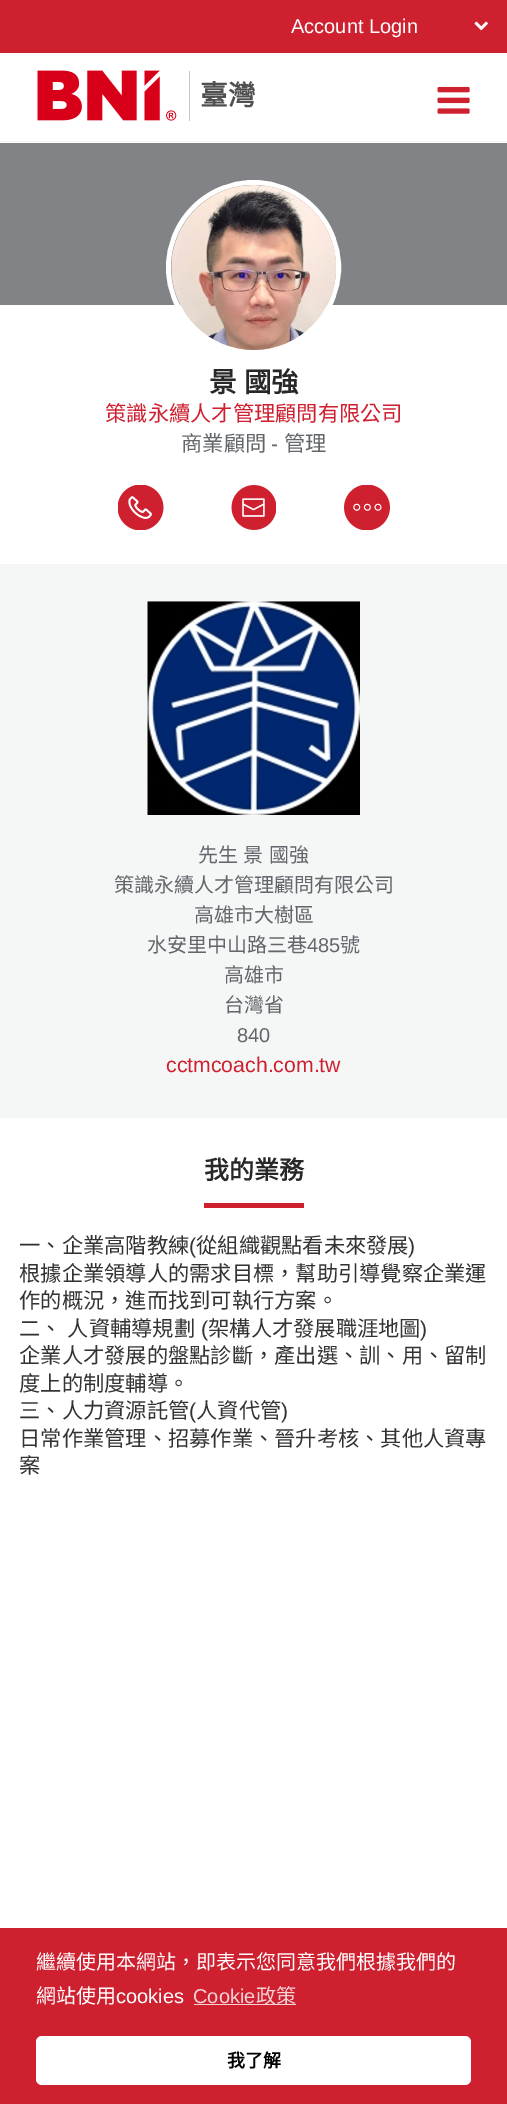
%!PS
<< /PageSize [507 2104] >> setpagedevice
/roundrect { 5 dict begin { /r /h /w /y /x } { exch def } forall
  x r add y moveto x w add y 2 copy h add r arct x w add y h add x 1 index r arct
  x y h add x y r arct x y 2 copy exch w add exch r arct closepath end } def
/picture { 5 dict begin { /h /w /y /x /name } { exch def } forall
  gsave x y translate w h scale
  w h 8 [w 0 0 h 0 0] name (r) file false 3 colorimage grestore end } def
0 2104 translate 1 -1 scale
4 setmiterlimit
1 setgray
0 0 507 2104 rectfill
0.812 0.125 0.188 setrgbcolor
0 0 507 53 rectfill
/LiberationSans-Regular [20 0 0 -20 0 0] selectfont
1 setgray
291 33 moveto (Account Login) show
(img1.rgb) 474 21 14 10 picture
0.961 0.969 0.969 setrgbcolor
0 141 507 1 rectfill
(img2.rgb) 37 70 140 51 picture
0.773 setgray
189 71 1 50 rectfill
/NotoSansCJKTC-Bold [27.5 0 0 -27.5 0 0] selectfont
0.314 setgray
200 105 moveto (臺灣) show
(img3.rgb) 437 86 33 28 picture
0.506 0.514 0.525 setrgbcolor
0 143 507 162 rectfill
1 setgray
5 setlinewidth
newpath 253.5 267.5 85 0 360 arc closepath stroke
(img4.rgb) 171 185 165 165 picture
0.161 0.153 0.153 setrgbcolor
209 392 moveto 1 0 32 (景 國強) widthshow
/NotoSansCJKTC-Regular [21.25 0 0 -21.25 0 0] selectfont
0.812 0.125 0.188 setrgbcolor
105 421 moveto (策識永續人才管理顧問有限公司) show
0.388 0.4 0.416 setrgbcolor
181 451 moveto (商業顧問) show
/LiberationSans-Regular [21.25 0 0 -21.25 0 0] selectfont
271 451 moveto (-) show
/NotoSansCJKTC-Regular [21.25 0 0 -21.25 0 0] selectfont
284 451 moveto (管理) show
(img5.rgb) 118 485 46 45 picture
(img6.rgb) 231 485 45 45 picture
(img7.rgb) 344 485 46 45 picture
0.961 0.969 0.969 setrgbcolor
0 564 507 554 rectfill
(img8.rgb) 147 601 213 214 picture
/NotoSansCJKTC-Regular [20 0 0 -20 0 0] selectfont
0.388 0.4 0.416 setrgbcolor
198 862 moveto 1 0 32 (先生 景 國強) widthshow
114 892 moveto (策識永續人才管理顧問有限公司) show
194 922 moveto (高雄市大樹區) show
147 952 moveto (水安里中山路三巷) show
/LiberationSans-Regular [20 0 0 -20 0 0] selectfont
307 952 moveto (485) show
/NotoSansCJKTC-Regular [20 0 0 -20 0 0] selectfont
340 952 moveto (號) show
224 982 moveto (高雄市) show
224 1012 moveto (台灣省) show
/LiberationSans-Regular [20 0 0 -20 0 0] selectfont
237 1042 moveto (840) show
/LiberationSans-Regular [21.25 0 0 -21.25 0 0] selectfont
0.812 0.125 0.188 setrgbcolor
166 1072 moveto (cctmcoach.com.tw) show
/NotoSansCJKTC-Bold [25 0 0 -25 0 0] selectfont
0.161 0.153 0.153 setrgbcolor
204 1179 moveto (我的業務) show
0.812 0.125 0.188 setrgbcolor
204 1203 100 5 rectfill
/NotoSansCJKTC-Regular [21.25 0 0 -21.25 0 0] selectfont
0.2 setgray
19 1253 moveto (一、企業高階教練) show
/LiberationSans-Regular [21.25 0 0 -21.25 0 0] selectfont
189 1253 moveto (\() show
/NotoSansCJKTC-Regular [21.25 0 0 -21.25 0 0] selectfont
196 1253 moveto (從組織觀點看未來發展) show
/LiberationSans-Regular [21.25 0 0 -21.25 0 0] selectfont
408 1253 moveto (\)) show
/NotoSansCJKTC-Regular [21.25 0 0 -21.25 0 0] selectfont
19 1281 moveto (根據企業領導人的需求目標，幫助引導覺察企業運) show
19 1308 moveto (作的概況，進而找到可執行方案。) show
19 1336 moveto 1 0 32 (二、 人資輔導規劃) widthshow
/LiberationSans-Regular [21.25 0 0 -21.25 0 0] selectfont
201 1336 moveto (\() show
/NotoSansCJKTC-Regular [21.25 0 0 -21.25 0 0] selectfont
208 1336 moveto (架構人才發展職涯地圖) show
/LiberationSans-Regular [21.25 0 0 -21.25 0 0] selectfont
420 1336 moveto (\)) show
/NotoSansCJKTC-Regular [21.25 0 0 -21.25 0 0] selectfont
19 1363 moveto (企業人才發展的盤點診斷，產出選、訓、用、留制) show
19 1391 moveto (度上的制度輔導。) show
19 1418 moveto (三、人力資源託管) show
/LiberationSans-Regular [21.25 0 0 -21.25 0 0] selectfont
189 1418 moveto (\() show
/NotoSansCJKTC-Regular [21.25 0 0 -21.25 0 0] selectfont
196 1418 moveto (人資代管) show
/LiberationSans-Regular [21.25 0 0 -21.25 0 0] selectfont
281 1418 moveto (\)) show
/NotoSansCJKTC-Regular [21.25 0 0 -21.25 0 0] selectfont
19 1446 moveto (日常作業管理、招募作業、晉升考核、其他人資專) show
19 1473 moveto (案) show
0.812 0.125 0.188 setrgbcolor
0 1928 507 176 rectfill
/NotoSansCJKTC-Regular [20 0 0 -20 0 0] selectfont
1 setgray
36 1969 moveto (繼續使用本網站，即表示您同意我們根據我們的) show
36 2003 moveto (網站使用) show
/LiberationSans-Regular [20 0 0 -20 0 0] selectfont
116 2003 moveto (cookies) show
0.961 0.824 0.839 setrgbcolor
193 2003 moveto (Cookie) show
194 2004 102 1 rectfill
/NotoSansCJKTC-Regular [20 0 0 -20 0 0] selectfont
256 2003 moveto (政策) show
1 setgray
36 2036 435 49 6 roundrect fill
/NotoSansCJKTC-Bold [18 0 0 -18 0 0] selectfont
0 setgray
227 2067 moveto (我了解) show
showpage
